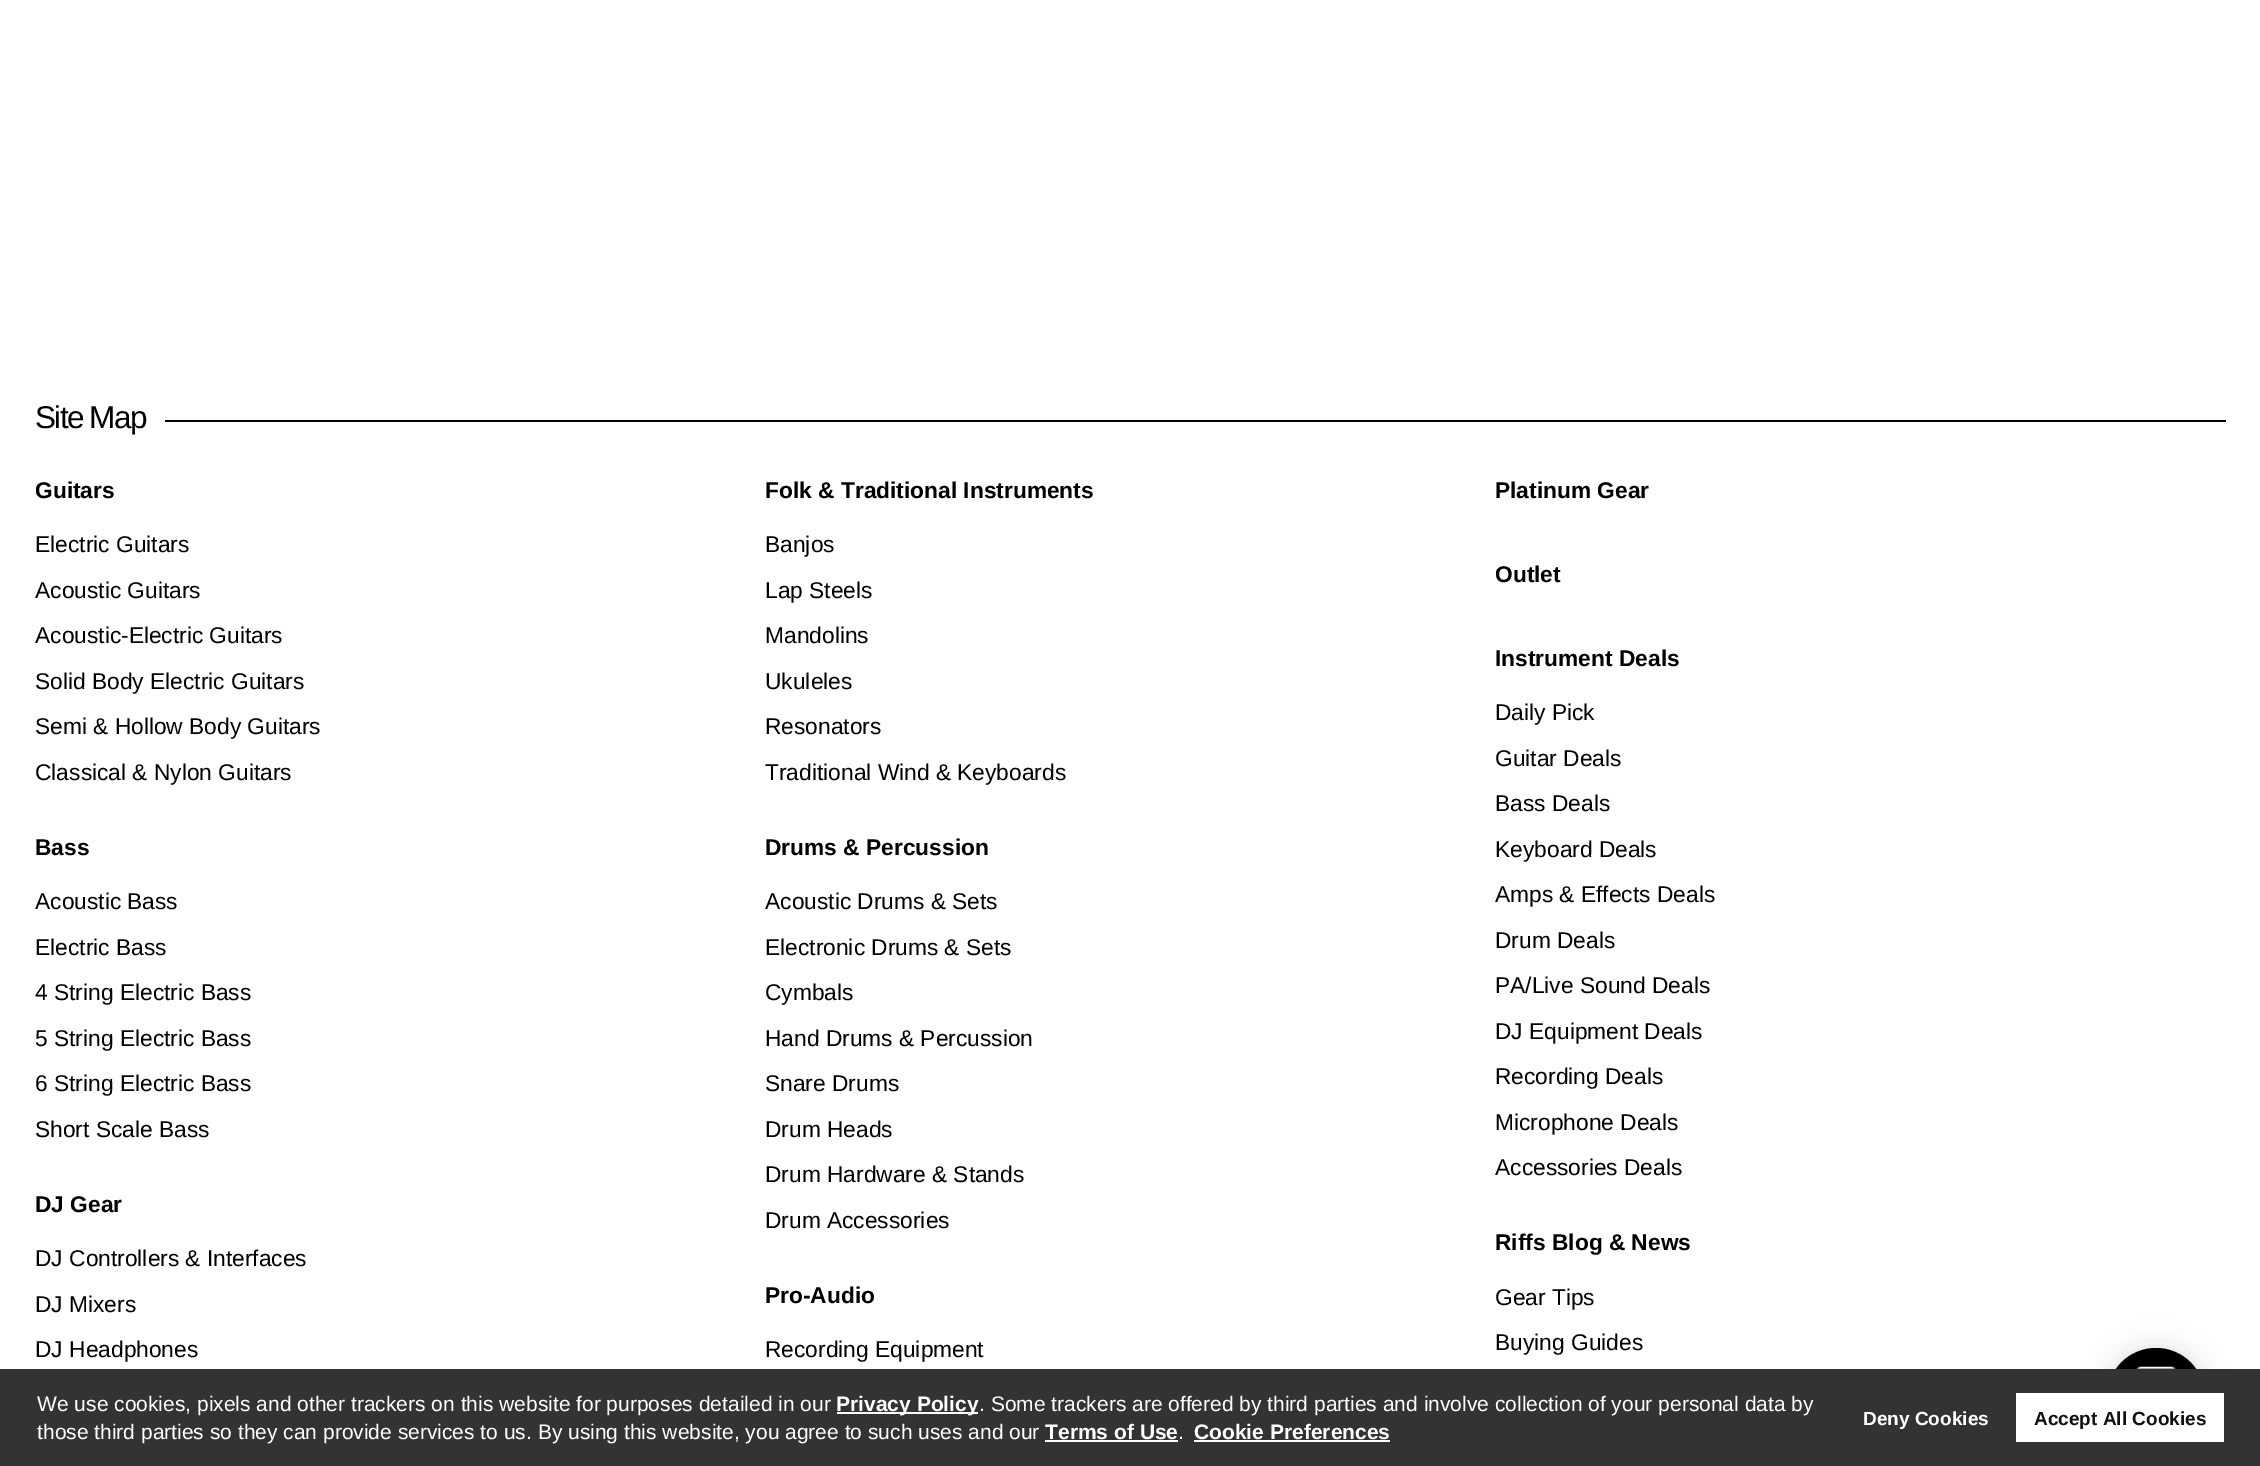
%!PS
<< /PageSize [2260 1466] /PageUsesTransparency true >> setpagedevice
/alpha { dup .setfillconstantalpha .setstrokeconstantalpha } def
/roundrect { 5 dict begin { /r /h /w /y /x } { exch def } forall
  x r add y moveto x w add y 2 copy h add r arct x w add y h add x 1 index r arct
  x y h add x y r arct x y 2 copy exch w add exch r arct closepath end } def
/shadow { 12 dict begin { /a /b /q /h /w /y /x } { exch def } forall gsave /was 0 def
  9 -2 -9 { dup b mul 4 div /e exch def 1 sub .425 mul 2.718 exch exp 1 add a .99 .min exch div /now exch def
    1 1 now sub 1 was sub div sub alpha /was now def
    w h .min e 2 mul add 0 gt { x e sub y e sub w e 2 mul add h e 2 mul add
      q e add b .6 mul add w h .min 2 div e add .min 0 .max roundrect fill } if } for grestore end } def
/picture { 5 dict begin { /h /w /y /x /name } { exch def } forall
  gsave x y translate w h scale
  w h 8 [w 0 0 h 0 0] name (r) file false 3 colorimage grestore end } def
0 .pushpdf14devicefilter
0 1466 translate 1 -1 scale
4 setmiterlimit
1 setgray
0 0 2260 1466 rectfill
0 setgray
165 420 2061 2 rectfill
/LiberationSans-Regular [31.5 0 0 -31.5 0 0] selectfont
35 428 moveto -1.75 0 (Site Map) ashow
/LiberationSans-Bold [22.75 0 0 -22.75 0 0] selectfont
35 498 moveto (Guitars) show
/LiberationSans-Regular [22.75 0 0 -22.75 0 0] selectfont
35 552 moveto (Electric Guitars) show
35 598 moveto (Acoustic Guitars) show
35 643 moveto (Acoustic-Electric Guitars) show
35 689 moveto (Solid Body Electric Guitars) show
35 734 moveto (Semi & Hollow Body Guitars) show
35 780 moveto (Classical & Nylon Guitars) show
/LiberationSans-Bold [22.75 0 0 -22.75 0 0] selectfont
35 855 moveto (Bass) show
/LiberationSans-Regular [22.75 0 0 -22.75 0 0] selectfont
35 909 moveto (Acoustic Bass) show
35 955 moveto (Electric Bass) show
35 1000 moveto (4 String Electric Bass) show
35 1046 moveto (5 String Electric Bass) show
35 1091 moveto (6 String Electric Bass) show
35 1137 moveto (Short Scale Bass) show
/LiberationSans-Bold [22.75 0 0 -22.75 0 0] selectfont
35 1212 moveto (DJ Gear) show
/LiberationSans-Regular [22.75 0 0 -22.75 0 0] selectfont
35 1266 moveto (DJ Controllers & Interfaces) show
35 1312 moveto (DJ Mixers) show
35 1357 moveto (DJ Headphones) show
/LiberationSans-Bold [22.75 0 0 -22.75 0 0] selectfont
765 498 moveto (Folk & Traditional Instruments) show
/LiberationSans-Regular [22.75 0 0 -22.75 0 0] selectfont
765 552 moveto (Banjos) show
765 598 moveto (Lap Steels) show
765 643 moveto (Mandolins) show
765 689 moveto (Ukuleles) show
765 734 moveto (Resonators) show
765 780 moveto (Traditional Wind & Keyboards) show
/LiberationSans-Bold [22.75 0 0 -22.75 0 0] selectfont
765 855 moveto (Drums & Percussion) show
/LiberationSans-Regular [22.75 0 0 -22.75 0 0] selectfont
765 909 moveto (Acoustic Drums & Sets) show
765 955 moveto (Electronic Drums & Sets) show
765 1000 moveto (Cymbals) show
765 1046 moveto (Hand Drums & Percussion) show
765 1091 moveto (Snare Drums) show
765 1137 moveto (Drum Heads) show
765 1182 moveto (Drum Hardware & Stands) show
765 1228 moveto (Drum Accessories) show
/LiberationSans-Bold [22.75 0 0 -22.75 0 0] selectfont
765 1303 moveto (Pro-Audio) show
/LiberationSans-Regular [22.75 0 0 -22.75 0 0] selectfont
765 1357 moveto (Recording Equipment) show
/LiberationSans-Bold [22.75 0 0 -22.75 0 0] selectfont
1495 498 moveto (Platinum Gear) show
1495 582 moveto (Outlet) show
1495 666 moveto (Instrument Deals) show
/LiberationSans-Regular [22.75 0 0 -22.75 0 0] selectfont
1495 720 moveto (Daily Pick) show
1495 766 moveto (Guitar Deals) show
1495 811 moveto (Bass Deals) show
1495 857 moveto (Keyboard Deals) show
1495 902 moveto (Amps & Effects Deals) show
1495 948 moveto (Drum Deals) show
1495 993 moveto (PA/Live Sound Deals) show
1495 1039 moveto (DJ Equipment Deals) show
1495 1084 moveto (Recording Deals) show
1495 1130 moveto (Microphone Deals) show
1495 1175 moveto (Accessories Deals) show
/LiberationSans-Bold [22.75 0 0 -22.75 0 0] selectfont
1495 1250 moveto (Riffs Blog & News) show
/LiberationSans-Regular [22.75 0 0 -22.75 0 0] selectfont
1495 1305 moveto (Gear Tips) show
1495 1350 moveto (Buying Guides) show
2107 1348 98 98 49 14 0.13 shadow
newpath 2156 1397 49 0 360 arc closepath fill
(img1.rgb) 2136 1366 40 3 picture
0.2 setgray
0 1369 2260 97 rectfill
/LiberationSans-Regular [21 0 0 -21 0 0] selectfont
1 setgray
37 1411 moveto (We use cookies, pixels and other trackers on this website for purposes detailed in our) show
837 1412 141 2 rectfill
/LiberationSans-Bold [21 0 0 -21 0 0] selectfont
836 1411 moveto (Privacy Policy) show
/LiberationSans-Regular [21 0 0 -21 0 0] selectfont
979 1411 moveto (. Some trackers are offered by third parties and involve collection of your personal data by) show
37 1439 moveto (those third parties so they can provide services to us. By using this website, you agree to such uses and our) show
/LiberationSans-Bold [21 0 0 -21 0 0] selectfont
1045 1439 moveto (Terms of Use) show
1045 1440 133 2 rectfill
/LiberationSans-Regular [21 0 0 -21 0 0] selectfont
1178 1439 moveto (.) show
/LiberationSans-Bold [21 0 0 -21 0 0] selectfont
1194 1439 moveto (Cookie Preferences) show
1194 1440 196 2 rectfill
/LiberationSans-Bold [19 0 0 -19 0 0] selectfont
1863 1425 moveto (Deny Cookies) show
2016 1393 208 49 rectfill
0.071 0.063 0.063 setrgbcolor
2034 1425 moveto (Accept All Cookies) show
.poppdf14devicefilter showpage
